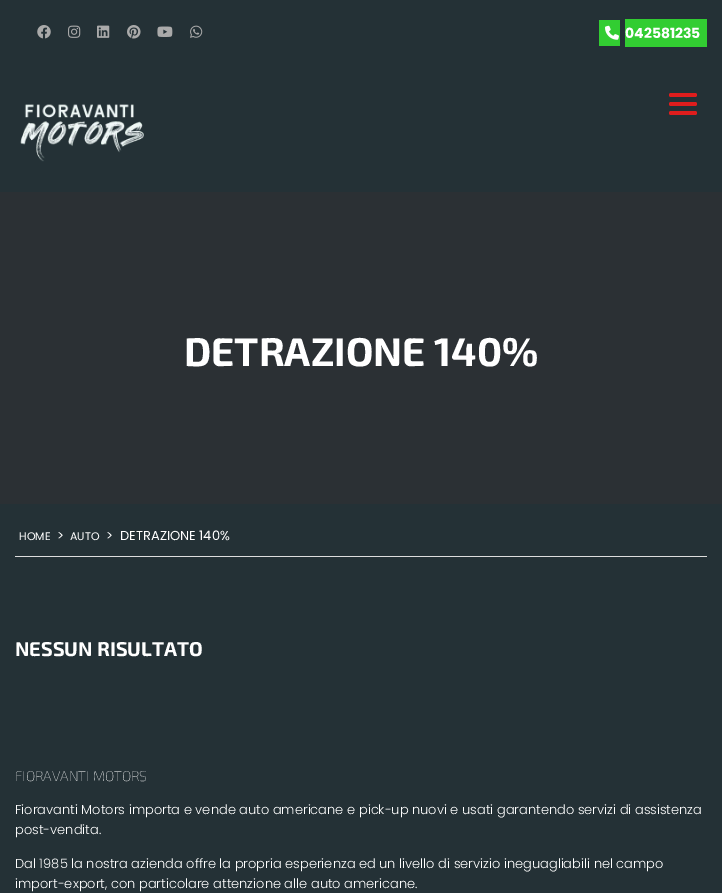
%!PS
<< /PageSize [722 893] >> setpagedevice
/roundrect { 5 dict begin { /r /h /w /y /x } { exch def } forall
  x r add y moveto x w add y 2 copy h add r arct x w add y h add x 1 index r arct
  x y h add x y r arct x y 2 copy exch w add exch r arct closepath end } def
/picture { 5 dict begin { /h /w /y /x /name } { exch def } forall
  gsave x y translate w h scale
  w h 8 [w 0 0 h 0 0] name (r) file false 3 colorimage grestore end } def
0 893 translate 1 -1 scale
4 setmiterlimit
0.141 0.192 0.212 setrgbcolor
0 0 722 893 rectfill
(img1.rgb) 37 25 14 14 picture
(img2.rgb) 68 25 13 13 picture
(img3.rgb) 97 25 13 13 picture
(img4.rgb) 127 25 14 14 picture
(img5.rgb) 157 26 16 11 picture
(img6.rgb) 190 25 13 13 picture
0.196 0.804 0.196 setrgbcolor
599 20 21 26 rectfill
625 19 82 28 rectfill
(img7.rgb) 605 25 14 15 picture
/Poppins-Bold [14 0 0 -14 0 0] selectfont
1 setgray
625 38 moveto (042581235) show
(img8.rgb) 20 104 124 58 picture
0.875 0.114 0.114 setrgbcolor
669 93 28 4 2 roundrect fill
669 102 28 4 2 roundrect fill
669 111 28 4 2 roundrect fill
0.169 0.188 0.204 setrgbcolor
0 192 722 312 rectfill
/Exo2-Bold [40 0 0 -40 0 0] selectfont
1 setgray
184 366 moveto (DETRAZIONE 140%) show
0.867 setgray
15 556 692 1 rectfill
/Poppins-Regular [11 0 0 -11 0 0] selectfont
1 setgray
19 540 moveto (HOME) show
/Poppins-Regular [13 0 0 -13 0 0] selectfont
57 540 moveto (>) show
/Poppins-Regular [11 0 0 -11 0 0] selectfont
70 540 moveto (AUTO) show
/Poppins-Regular [13 0 0 -13 0 0] selectfont
106 540 moveto (>) show
120 540 moveto (DETRAZIONE 140%) show
/Exo2-Bold [20 0 0 -20 0 0] selectfont
15 656 moveto (NESSUN RISULTATO) show
/Exo2-Thin [14 0 0 -14 0 0] selectfont
15 781 moveto (FIORAVANTI MOTORS) show
/Poppins-Light [13 0 0 -13 0 0] selectfont
15 814 moveto (Fioravanti Motors importa e vende auto americane e pick-up nuovi e usati garantendo servizi di assistenza) show
15 834 moveto (post-vendita.) show
15 868 moveto (Dal 1985 la nostra azienda offre la propria esperienza ed un livello di servizio ineguagliabili nel campo) show
15 888 moveto (import-export, con particolare attenzione alle auto americane.) show
showpage
